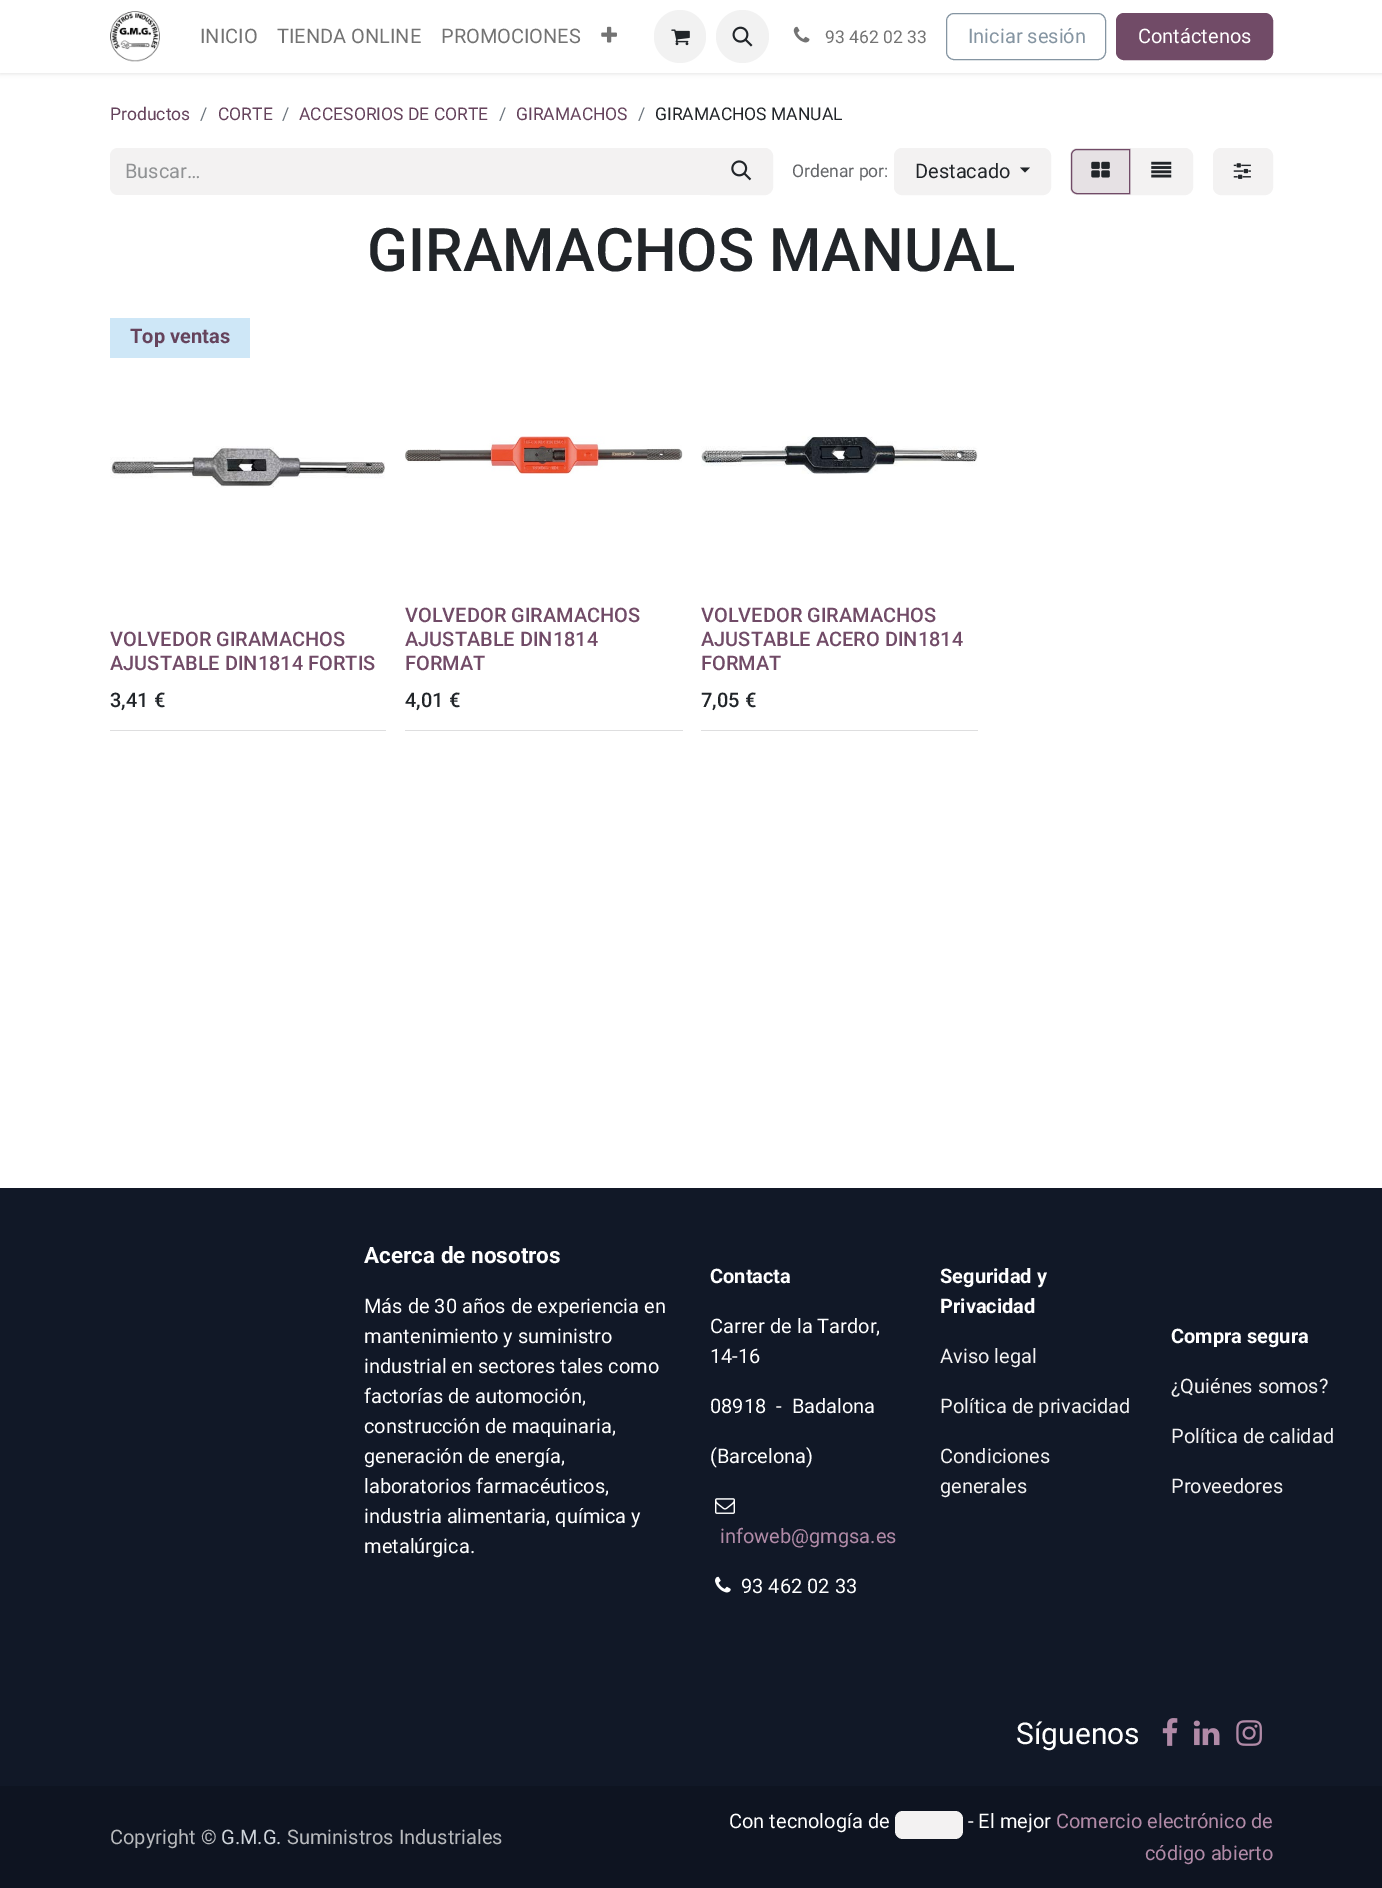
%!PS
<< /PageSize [1382 1888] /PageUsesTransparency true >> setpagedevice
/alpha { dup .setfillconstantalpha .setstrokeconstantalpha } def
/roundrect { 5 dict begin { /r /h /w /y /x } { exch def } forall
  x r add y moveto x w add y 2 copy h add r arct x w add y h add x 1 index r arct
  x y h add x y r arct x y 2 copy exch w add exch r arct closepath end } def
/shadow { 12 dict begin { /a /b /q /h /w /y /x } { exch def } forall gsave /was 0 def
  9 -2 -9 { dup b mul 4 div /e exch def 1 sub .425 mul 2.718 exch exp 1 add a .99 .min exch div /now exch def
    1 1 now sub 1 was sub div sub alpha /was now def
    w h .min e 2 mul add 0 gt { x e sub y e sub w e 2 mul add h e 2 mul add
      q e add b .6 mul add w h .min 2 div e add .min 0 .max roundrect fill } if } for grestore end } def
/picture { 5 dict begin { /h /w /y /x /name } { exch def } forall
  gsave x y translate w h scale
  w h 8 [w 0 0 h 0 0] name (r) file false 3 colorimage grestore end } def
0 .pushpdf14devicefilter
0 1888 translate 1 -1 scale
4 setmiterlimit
1 setgray
0 0 1382 1888 rectfill
0 setgray
0 1 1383 73 0 2 0.1 shadow
1 setgray
0 0 1382 73 rectfill
(img1.rgb) 110 11 50 51 picture
/Roboto-Regular [20 0 0 -20 0 0] selectfont
0.451 setgray
200 43 moveto (INICIO) show
277 43 moveto (TIENDA ONLINE) show
441 43 moveto (PROMOCIONES) show
(img2.rgb) 601 26 16 17 picture
0.949 setgray
654 10 52 53 26 roundrect fill
(img3.rgb) 671 29 19 17 picture
newpath 742.5 36.5 26.5 0 360 arc closepath fill
(img4.rgb) 732 26 21 21 picture
(img5.rgb) 793 26 17 17 picture
/Roboto-Regular [17.5 0 0 -17.5 0 0] selectfont
0.451 setgray
825 43 moveto (93 462 02 33) show
0.522 0.584 0.635 setrgbcolor
946.5 13.5 159 46 7.5 roundrect stroke
/Roboto-Regular [20 0 0 -20 0 0] selectfont
968 43 moveto (Iniciar sesión) show
0.443 0.294 0.404 setrgbcolor
1116.5 13.5 156 46 7.5 roundrect gsave fill grestore
stroke
1 setgray
1138 43 moveto (Contáctenos) show
/Roboto-Regular [17.5 0 0 -17.5 0 0] selectfont
0.396 0.263 0.361 setrgbcolor
110 120 moveto (Productos) show
0.424 0.459 0.49 setrgbcolor
200 120 moveto (/) show
0.396 0.263 0.361 setrgbcolor
218 120 moveto (CORTE) show
0.424 0.459 0.49 setrgbcolor
282 120 moveto (/) show
0.396 0.263 0.361 setrgbcolor
299 120 moveto (ACCESORIOS DE CORTE) show
0.424 0.459 0.49 setrgbcolor
499 120 moveto (/) show
0.396 0.263 0.361 setrgbcolor
516 120 moveto (GIRAMACHOS) show
0.424 0.459 0.49 setrgbcolor
638 120 moveto (/) show
0.129 0.145 0.161 setrgbcolor
655 120 moveto (GIRAMACHOS MANUAL) show
0.953 0.949 0.949 setrgbcolor
newpath 118 148 moveto 711 148 lineto 711 195 lineto 118 195 lineto 113.5 195 110 191.5 110 187 curveto 110 156 lineto 110 151.5 113.5 148 118 148 curveto closepath fill
/Roboto-Regular [20 0 0 -20 0 0] selectfont
0.565 0.573 0.58 setrgbcolor
125 178 moveto (Buscar…) show
0.953 0.949 0.949 setrgbcolor
newpath 710.5 148.5 moveto 765 148.5 lineto 769 148.5 772.5 152 772.5 156 curveto 772.5 187 lineto 772.5 191 769 194.5 765 194.5 curveto 710.5 194.5 lineto closepath gsave fill grestore
stroke
(img6.rgb) 731 160 21 21 picture
/Roboto-Regular [17.5 0 0 -17.5 0 0] selectfont
0.392 0.4 0.412 setrgbcolor
792 177 moveto (Ordenar por:) show
0.953 0.949 0.949 setrgbcolor
894.5 148.5 156 46 7.5 roundrect gsave fill grestore
stroke
/Roboto-Regular [20 0 0 -20 0 0] selectfont
0.129 0.145 0.161 setrgbcolor
915 178 moveto (Destacado) show
newpath 1020 167.5 moveto 1030 167.5 lineto 1025 172.5 lineto closepath fill
0.953 0.949 0.949 setrgbcolor
newpath 1130.5 148.5 moveto 1185 148.5 lineto 1189 148.5 1192.5 152 1192.5 156 curveto 1192.5 187 lineto 1192.5 191 1189 194.5 1185 194.5 curveto 1130.5 194.5 lineto closepath gsave fill grestore
stroke
0.902 0.882 0.894 setrgbcolor
newpath 1078 148 moveto 1131 148 lineto 1131 195 lineto 1078 195 lineto 1073.5 195 1070 191.5 1070 187 curveto 1070 156 lineto 1070 151.5 1073.5 148 1078 148 curveto closepath fill
0.443 0.294 0.404 setrgbcolor
newpath 1077 149.5 moveto 1129.5 149.5 lineto 1129.5 193.5 lineto 1077 193.5 lineto 1074 193.5 1071.5 191 1071.5 188 curveto 1071.5 155 lineto 1071.5 152 1074 149.5 1077 149.5 curveto closepath stroke
(img7.rgb) 1091 161 19 17 picture
(img8.rgb) 1151 161 21 17 picture
0.953 0.949 0.949 setrgbcolor
1213.5 148.5 59 46 7.5 roundrect gsave fill grestore
stroke
(img9.rgb) 1233 163 18 16 picture
/Roboto-Medium [60 0 0 -60 0 0] selectfont
0.129 0.145 0.161 setrgbcolor
367 271 moveto (GIRAMACHOS MANUAL) show
0.871 0.871 0.875 setrgbcolor
110 730 276 1 rectfill
0.808 0.906 0.969 setrgbcolor
110 318 140 40 rectfill
/Roboto-Bold [20 0 0 -20 0 0] selectfont
0.396 0.263 0.361 setrgbcolor
130 343 moveto (Top ventas) show
(img10.rgb) 110 446 275 42 picture
/Roboto-Medium [20 0 0 -20 0 0] selectfont
0.443 0.294 0.404 setrgbcolor
110 646 moveto (VOLVEDOR GIRAMACHOS) show
110 670 moveto (AJUSTABLE DIN1814 FORTIS) show
0.129 0.145 0.161 setrgbcolor
110 707 moveto (3,41 €) show
0.871 0.871 0.875 setrgbcolor
405 730 278 1 rectfill
(img11.rgb) 405 436 278 38 picture
0.443 0.294 0.404 setrgbcolor
405 622 moveto (VOLVEDOR GIRAMACHOS) show
405 646 moveto (AJUSTABLE DIN1814) show
405 670 moveto (FORMAT) show
0.129 0.145 0.161 setrgbcolor
405 707 moveto (4,01 €) show
0.871 0.871 0.875 setrgbcolor
701 730 277 1 rectfill
(img12.rgb) 701 436 277 38 picture
0.443 0.294 0.404 setrgbcolor
701 622 moveto (VOLVEDOR GIRAMACHOS) show
701 646 moveto (AJUSTABLE ACERO DIN1814) show
701 670 moveto (FORMAT) show
0.129 0.145 0.161 setrgbcolor
701 707 moveto (7,05 €) show
0.067 0.094 0.153 setrgbcolor
0 1188 1382 598 rectfill
/Roboto-Bold [22.5 0 0 -22.5 0 0] selectfont
1 setgray
364 1263 moveto (Acerca de nosotros) show
/Roboto-Regular [20 0 0 -20 0 0] selectfont
364 1313 moveto (Más de 30 años de experiencia en) show
364 1343 moveto (mantenimiento y suministro) show
364 1373 moveto (industrial en sectores tales como) show
364 1403 moveto (factorías de automoción,) show
364 1433 moveto (construcción de maquinaria,) show
364 1463 moveto (generación de energía,) show
364 1493 moveto (laboratorios farmacéuticos,) show
364 1523 moveto (industria alimentaria, química y) show
364 1553 moveto (metalúrgica.) show
/Roboto-Bold [20 0 0 -20 0 0] selectfont
710 1283 moveto (Contacta) show
/Roboto-Regular [20 0 0 -20 0 0] selectfont
710 1333 moveto (Carrer de la Tardor,) show
710 1363 moveto (14-16) show
710 1413 moveto (08918  -  Badalona) show
710 1463 moveto (\(Barcelona\)) show
(img13.rgb) 715 1498 20 16 picture
0.694 0.541 0.655 setrgbcolor
720 1543 moveto (infoweb@gmgsa.es) show
(img14.rgb) 715 1576 16 17 picture
1 setgray
741 1593 moveto (93 462 02 33) show
/Roboto-Bold [20 0 0 -20 0 0] selectfont
940 1283 moveto (Seguridad y) show
940 1313 moveto (Privacidad) show
/Roboto-Regular [20 0 0 -20 0 0] selectfont
0.953 0.949 0.949 setrgbcolor
940 1363 moveto (Aviso legal) show
940 1413 moveto (Política de privacidad) show
940 1463 moveto (Condiciones) show
940 1493 moveto (generales) show
/Roboto-Bold [20 0 0 -20 0 0] selectfont
1 setgray
1171 1343 moveto (Compra segura) show
/Roboto-Regular [20 0 0 -20 0 0] selectfont
0.953 0.949 0.949 setrgbcolor
1171 1393 moveto (¿Quiénes somos?) show
1171 1443 moveto (Política de calidad) show
1171 1493 moveto (Proveedores) show
/Roboto-Regular [30 0 0 -30 0 0] selectfont
1 setgray
1016 1744 moveto (Síguenos) show
(img15.rgb) 1162 1718 16 28 picture
(img16.rgb) 1193 1720 27 26 picture
(img17.rgb) 1236 1720 26 26 picture
0.055 0.078 0.129 setrgbcolor
0 1786 1382 102 rectfill
/Roboto-Regular [20 0 0 -20 0 0] selectfont
0.718 0.725 0.737 setrgbcolor
110 1844 moveto (Copyright ©) show
0.808 0.831 0.855 setrgbcolor
221 1844 moveto (G.M.G.) show
0.718 0.725 0.737 setrgbcolor
287 1844 moveto (Suministros Industriales) show
1 setgray
729 1828 moveto (Con tecnología de) show
0.953 0.949 0.949 setrgbcolor
895 1811 68 28 8 roundrect fill
1 setgray
968 1828 moveto (- El mejor) show
0.694 0.541 0.655 setrgbcolor
1056 1828 moveto (Comercio electrónico de) show
1145 1860 moveto (código abierto) show
.poppdf14devicefilter showpage
